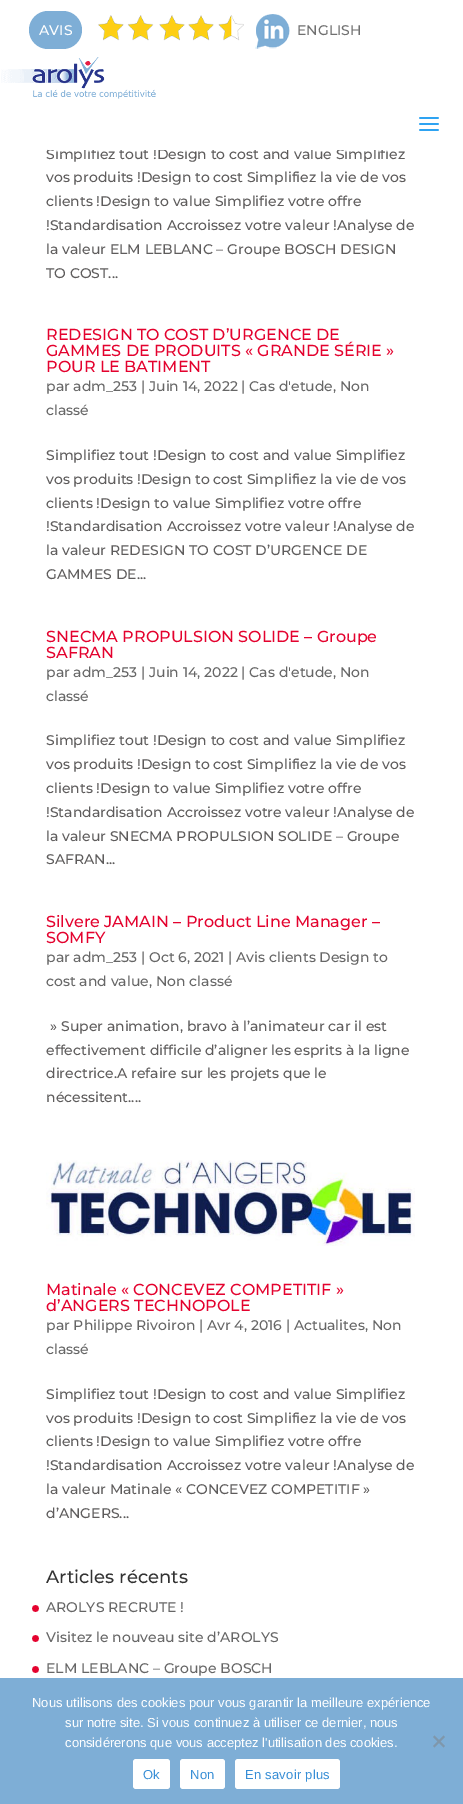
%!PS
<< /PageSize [463 1804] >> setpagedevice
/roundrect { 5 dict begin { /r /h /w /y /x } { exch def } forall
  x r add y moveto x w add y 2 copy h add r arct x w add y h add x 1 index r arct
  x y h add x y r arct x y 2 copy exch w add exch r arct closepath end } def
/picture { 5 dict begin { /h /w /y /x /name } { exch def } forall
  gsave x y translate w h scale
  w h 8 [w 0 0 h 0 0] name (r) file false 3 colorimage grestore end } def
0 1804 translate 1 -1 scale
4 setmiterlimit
1 setgray
0 0 463 1804 rectfill
0.494 0.682 0.839 setrgbcolor
29 11 53 38 19 roundrect fill
/Montserrat-Thin [14 0 0 -14 0 0] selectfont
1 setgray
39 35 moveto (AVIS) show
(img1.rgb) 98 15 146 26 picture
(img2.rgb) 255 14 35 35 picture
0.439 setgray
297 35 moveto (ENGLISH) show
0.369 0.361 0.361 setrgbcolor
46 159 moveto (Simplifiez tout !Design to cost and value Simplifiez) show
1 setgray
48 148 341 2 rectfill
(img3.rgb) 1 57 155 42 picture
(img4.rgb) 419 117 20 14 picture
0.369 0.361 0.361 setrgbcolor
46 182 moveto (vos produits !Design to cost Simplifiez la vie de vos) show
46 206 moveto (clients !Design to value Simplifiez votre offre) show
46 230 moveto (!Standardisation Accroissez votre valeur !Analyse de) show
46 254 moveto (la valeur ELM LEBLANC – Groupe BOSCH DESIGN) show
46 278 moveto (TO COST...) show
/Montserrat-Thin [16 0 0 -16 0 0] selectfont
0.894 0.008 0.18 setrgbcolor
46 340 moveto (REDESIGN TO COST D’URGENCE DE) show
46 356 moveto (GAMMES DE PRODUITS « GRANDE SÉRIE ») show
46 372 moveto (POUR LE BATIMENT) show
/Montserrat-Thin [14 0 0 -14 0 0] selectfont
0.4 setgray
46 391 moveto (par adm_253 | Juin 14, 2022 | Cas d'etude, Non) show
46 415 moveto (classé) show
0.369 0.361 0.361 setrgbcolor
46 460 moveto (Simplifiez tout !Design to cost and value Simplifiez) show
46 484 moveto (vos produits !Design to cost Simplifiez la vie de vos) show
46 508 moveto (clients !Design to value Simplifiez votre offre) show
46 531 moveto (!Standardisation Accroissez votre valeur !Analyse de) show
46 555 moveto (la valeur REDESIGN TO COST D’URGENCE DE) show
46 579 moveto (GAMMES DE...) show
/Montserrat-Thin [16 0 0 -16 0 0] selectfont
0.894 0.008 0.18 setrgbcolor
46 642 moveto (SNECMA PROPULSION SOLIDE – Groupe) show
46 658 moveto (SAFRAN) show
/Montserrat-Thin [14 0 0 -14 0 0] selectfont
0.4 setgray
46 677 moveto (par adm_253 | Juin 14, 2022 | Cas d'etude, Non) show
46 701 moveto (classé) show
0.369 0.361 0.361 setrgbcolor
46 745 moveto (Simplifiez tout !Design to cost and value Simplifiez) show
46 769 moveto (vos produits !Design to cost Simplifiez la vie de vos) show
46 793 moveto (clients !Design to value Simplifiez votre offre) show
46 817 moveto (!Standardisation Accroissez votre valeur !Analyse de) show
46 841 moveto (la valeur SNECMA PROPULSION SOLIDE – Groupe) show
46 864 moveto (SAFRAN...) show
/Montserrat-Thin [16 0 0 -16 0 0] selectfont
0.894 0.008 0.18 setrgbcolor
46 927 moveto (Silvere JAMAIN – Product Line Manager –) show
46 943 moveto (SOMFY) show
/Montserrat-Thin [14 0 0 -14 0 0] selectfont
0.4 setgray
46 962 moveto (par adm_253 | Oct 6, 2021 | Avis clients Design to) show
46 986 moveto (cost and value, Non classé) show
0.369 0.361 0.361 setrgbcolor
50 1031 moveto (» Super animation, bravo à l’animateur car il est) show
46 1055 moveto (effectivement difficile d’aligner les esprits à la ligne) show
46 1078 moveto (directrice.A refaire sur les projets que le) show
46 1102 moveto (nécessitent....) show
(img5.rgb) 46 1160 369 86 picture
/Montserrat-Thin [16 0 0 -16 0 0] selectfont
0.894 0.008 0.18 setrgbcolor
46 1295 moveto (Matinale « CONCEVEZ COMPETITIF ») show
46 1311 moveto (d’ANGERS TECHNOPOLE) show
/Montserrat-Thin [14 0 0 -14 0 0] selectfont
0.4 setgray
46 1330 moveto (par Philippe Rivoiron | Avr 4, 2016 | Actualites, Non) show
46 1354 moveto (classé) show
0.369 0.361 0.361 setrgbcolor
46 1399 moveto (Simplifiez tout !Design to cost and value Simplifiez) show
46 1423 moveto (vos produits !Design to cost Simplifiez la vie de vos) show
46 1446 moveto (clients !Design to value Simplifiez votre offre) show
46 1470 moveto (!Standardisation Accroissez votre valeur !Analyse de) show
46 1494 moveto (la valeur Matinale « CONCEVEZ COMPETITIF ») show
46 1518 moveto (d’ANGERS...) show
/Montserrat-Thin [18 0 0 -18 0 0] selectfont
0.2 setgray
46 1583 moveto (Articles récents) show
(img6.rgb) 32 1605 7 7 picture
/Montserrat-Thin [14 0 0 -14 0 0] selectfont
0.4 setgray
46 1612 moveto (AROLYS RECRUTE !) show
(img6.rgb) 32 1635 7 7 picture
46 1642 moveto (Visitez le nouveau site d’AROLYS) show
(img6.rgb) 32 1666 7 7 picture
46 1673 moveto (ELM LEBLANC – Groupe BOSCH) show
0.494 0.682 0.839 setrgbcolor
0 1678 463 126 rectfill
/LiberationSans-Regular [13 0 0 -13 0 0] selectfont
1 setgray
32 1707 moveto (Nous utilisons des cookies pour vous garantir la meilleure expérience) show
65 1727 moveto (sur notre site. Si vous continuez à utiliser ce dernier, nous) show
65 1747 moveto (considérerons que vous acceptez l'utilisation des cookies.) show
0.498 0.592 0.671 setrgbcolor
newpath 443.5 1735.5 moveto 445 1737 lineto 434.5 1747.5 lineto 433 1746 lineto closepath fill
newpath 433 1737 moveto 434.5 1735.5 lineto 445 1746 lineto 443.5 1747.5 lineto closepath fill
1 setgray
133 1759 37 30 3 roundrect fill
0.216 0.557 0.839 setrgbcolor
143 1779 moveto 0.25 0 (Ok) ashow
1 setgray
180 1759 45 30 3 roundrect fill
0.216 0.557 0.839 setrgbcolor
190 1779 moveto 0.25 0 (Non) ashow
1 setgray
235 1759 105 30 3 roundrect fill
0.216 0.557 0.839 setrgbcolor
245 1779 moveto 0.25 0 (En savoir plus) ashow
showpage
